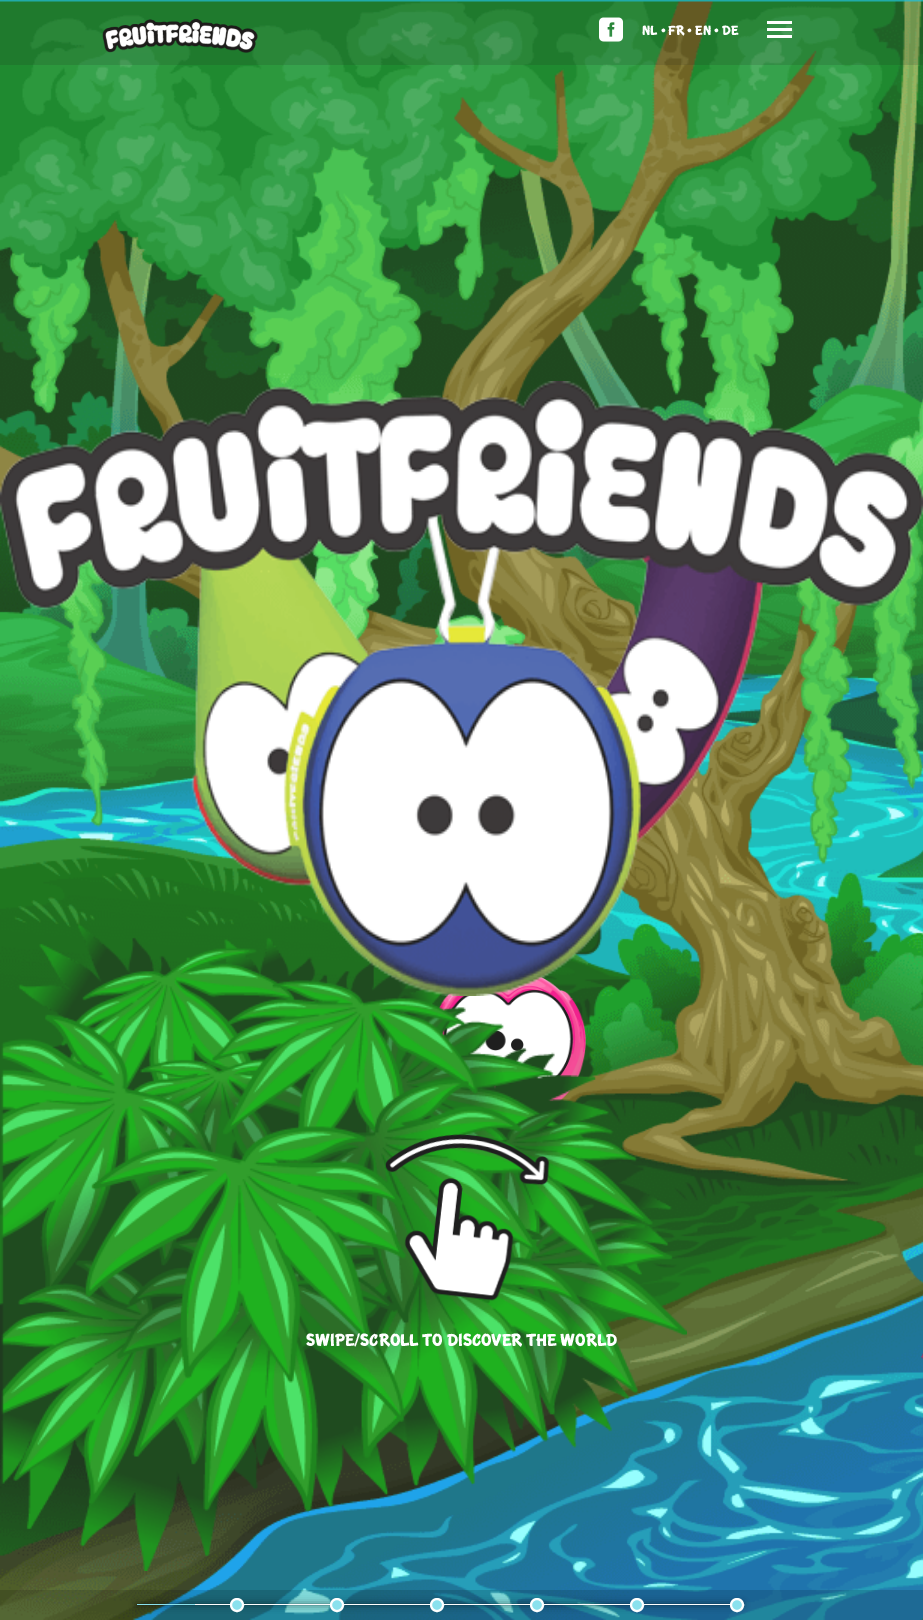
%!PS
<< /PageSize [923 1620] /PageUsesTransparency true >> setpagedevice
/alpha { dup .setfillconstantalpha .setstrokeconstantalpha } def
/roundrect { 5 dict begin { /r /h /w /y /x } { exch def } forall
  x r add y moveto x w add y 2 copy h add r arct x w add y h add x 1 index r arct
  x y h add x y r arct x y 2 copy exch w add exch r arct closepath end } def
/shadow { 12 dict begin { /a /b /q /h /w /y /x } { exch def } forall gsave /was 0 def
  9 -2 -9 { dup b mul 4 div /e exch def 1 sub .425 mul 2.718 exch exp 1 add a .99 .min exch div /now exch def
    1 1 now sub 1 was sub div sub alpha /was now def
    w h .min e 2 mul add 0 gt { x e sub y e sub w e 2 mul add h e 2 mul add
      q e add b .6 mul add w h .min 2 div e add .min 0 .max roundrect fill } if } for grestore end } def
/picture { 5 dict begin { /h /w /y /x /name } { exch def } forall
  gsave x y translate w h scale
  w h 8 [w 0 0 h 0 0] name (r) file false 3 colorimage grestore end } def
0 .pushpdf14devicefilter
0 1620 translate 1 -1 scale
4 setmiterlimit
1 setgray
0 0 923 1620 rectfill
gsave newpath 0 0 moveto 923 0 lineto 923 2 lineto 0 2 lineto closepath clip newpath
<< /ShadingType 2 /ColorSpace /DeviceRGB /Coords [462 1620 462 0] /Extend [true true] /Function << /FunctionType 3 /Domain [0 1] /Functions [<< /FunctionType 2 /Domain [0 1] /C0 [1 1 0.635] /C1 [1 1 0.635] /N 1 >> << /FunctionType 2 /Domain [0 1] /C0 [1 1 0.635] /C1 [0.122 0.871 0.949] /N 1 >>] /Bounds [0.1] /Encode [0 1 0 1] >> >> shfill grestore
(img3.rgb) 0 0 923 1620 picture
0.15 alpha
0.118 setgray
0 0 923 65 rectfill
1 alpha
(img1.rgb) 102 18 156 35 picture
(img2.rgb) 599 17 24 25 picture
/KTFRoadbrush-Regular [14 0 0 -14 0 0] selectfont
1 setgray
642 35 moveto (NL) show
/LiberationSans-Regular [14 0 0 -14 0 0] selectfont
661 35 moveto (•) show
/KTFRoadbrush-Regular [14 0 0 -14 0 0] selectfont
668 35 moveto (FR) show
/LiberationSans-Regular [14 0 0 -14 0 0] selectfont
687 35 moveto (•) show
/KTFRoadbrush-Regular [14 0 0 -14 0 0] selectfont
695 35 moveto (EN) show
/LiberationSans-Regular [14 0 0 -14 0 0] selectfont
714 35 moveto (•) show
/KTFRoadbrush-Regular [14 0 0 -14 0 0] selectfont
722 35 moveto (DE) show
767 21 25 3 rectfill
767 28 25 3 rectfill
767 35 25 3 rectfill
(img5.rgb) 438 976 148 126 picture
(img6.rgb) 443 990 131 97 picture
(img7.rgb) 443 990 131 97 picture
(img4.rgb) 1 924 686 647 picture
(img8.rgb) 921 1353 2 7 picture
(img9.rgb) 0 381 923 615 picture
(img10.rgb) 385 1134 165 167 picture
/KTFRoadbrush-Regular [18 0 0 -18 0 0] selectfont
306 1346 moveto (Swipe/Scroll to discover the world) show
0.15 alpha
0 setgray
0 1590 923 30 rectfill
1 alpha
137 1604 605 1 0 4 0.5 shadow
1 setgray
195 1604 536 1 rectfill
0.541 0.882 0.929 setrgbcolor
137 1604 58 1 rectfill
newpath 237 1605 6 0 360 arc closepath gsave fill grestore
1 setgray
2 setlinewidth
stroke
0.541 0.882 0.929 setrgbcolor
newpath 337 1605 6 0 360 arc closepath gsave fill grestore
1 setgray
stroke
0.541 0.882 0.929 setrgbcolor
newpath 437 1605 6 0 360 arc closepath gsave fill grestore
1 setgray
stroke
0.541 0.882 0.929 setrgbcolor
newpath 537 1605 6 0 360 arc closepath gsave fill grestore
1 setgray
stroke
0.541 0.882 0.929 setrgbcolor
newpath 637 1605 6 0 360 arc closepath gsave fill grestore
1 setgray
stroke
0.541 0.882 0.929 setrgbcolor
newpath 737 1605 6 0 360 arc closepath gsave fill grestore
1 setgray
stroke
.poppdf14devicefilter showpage
